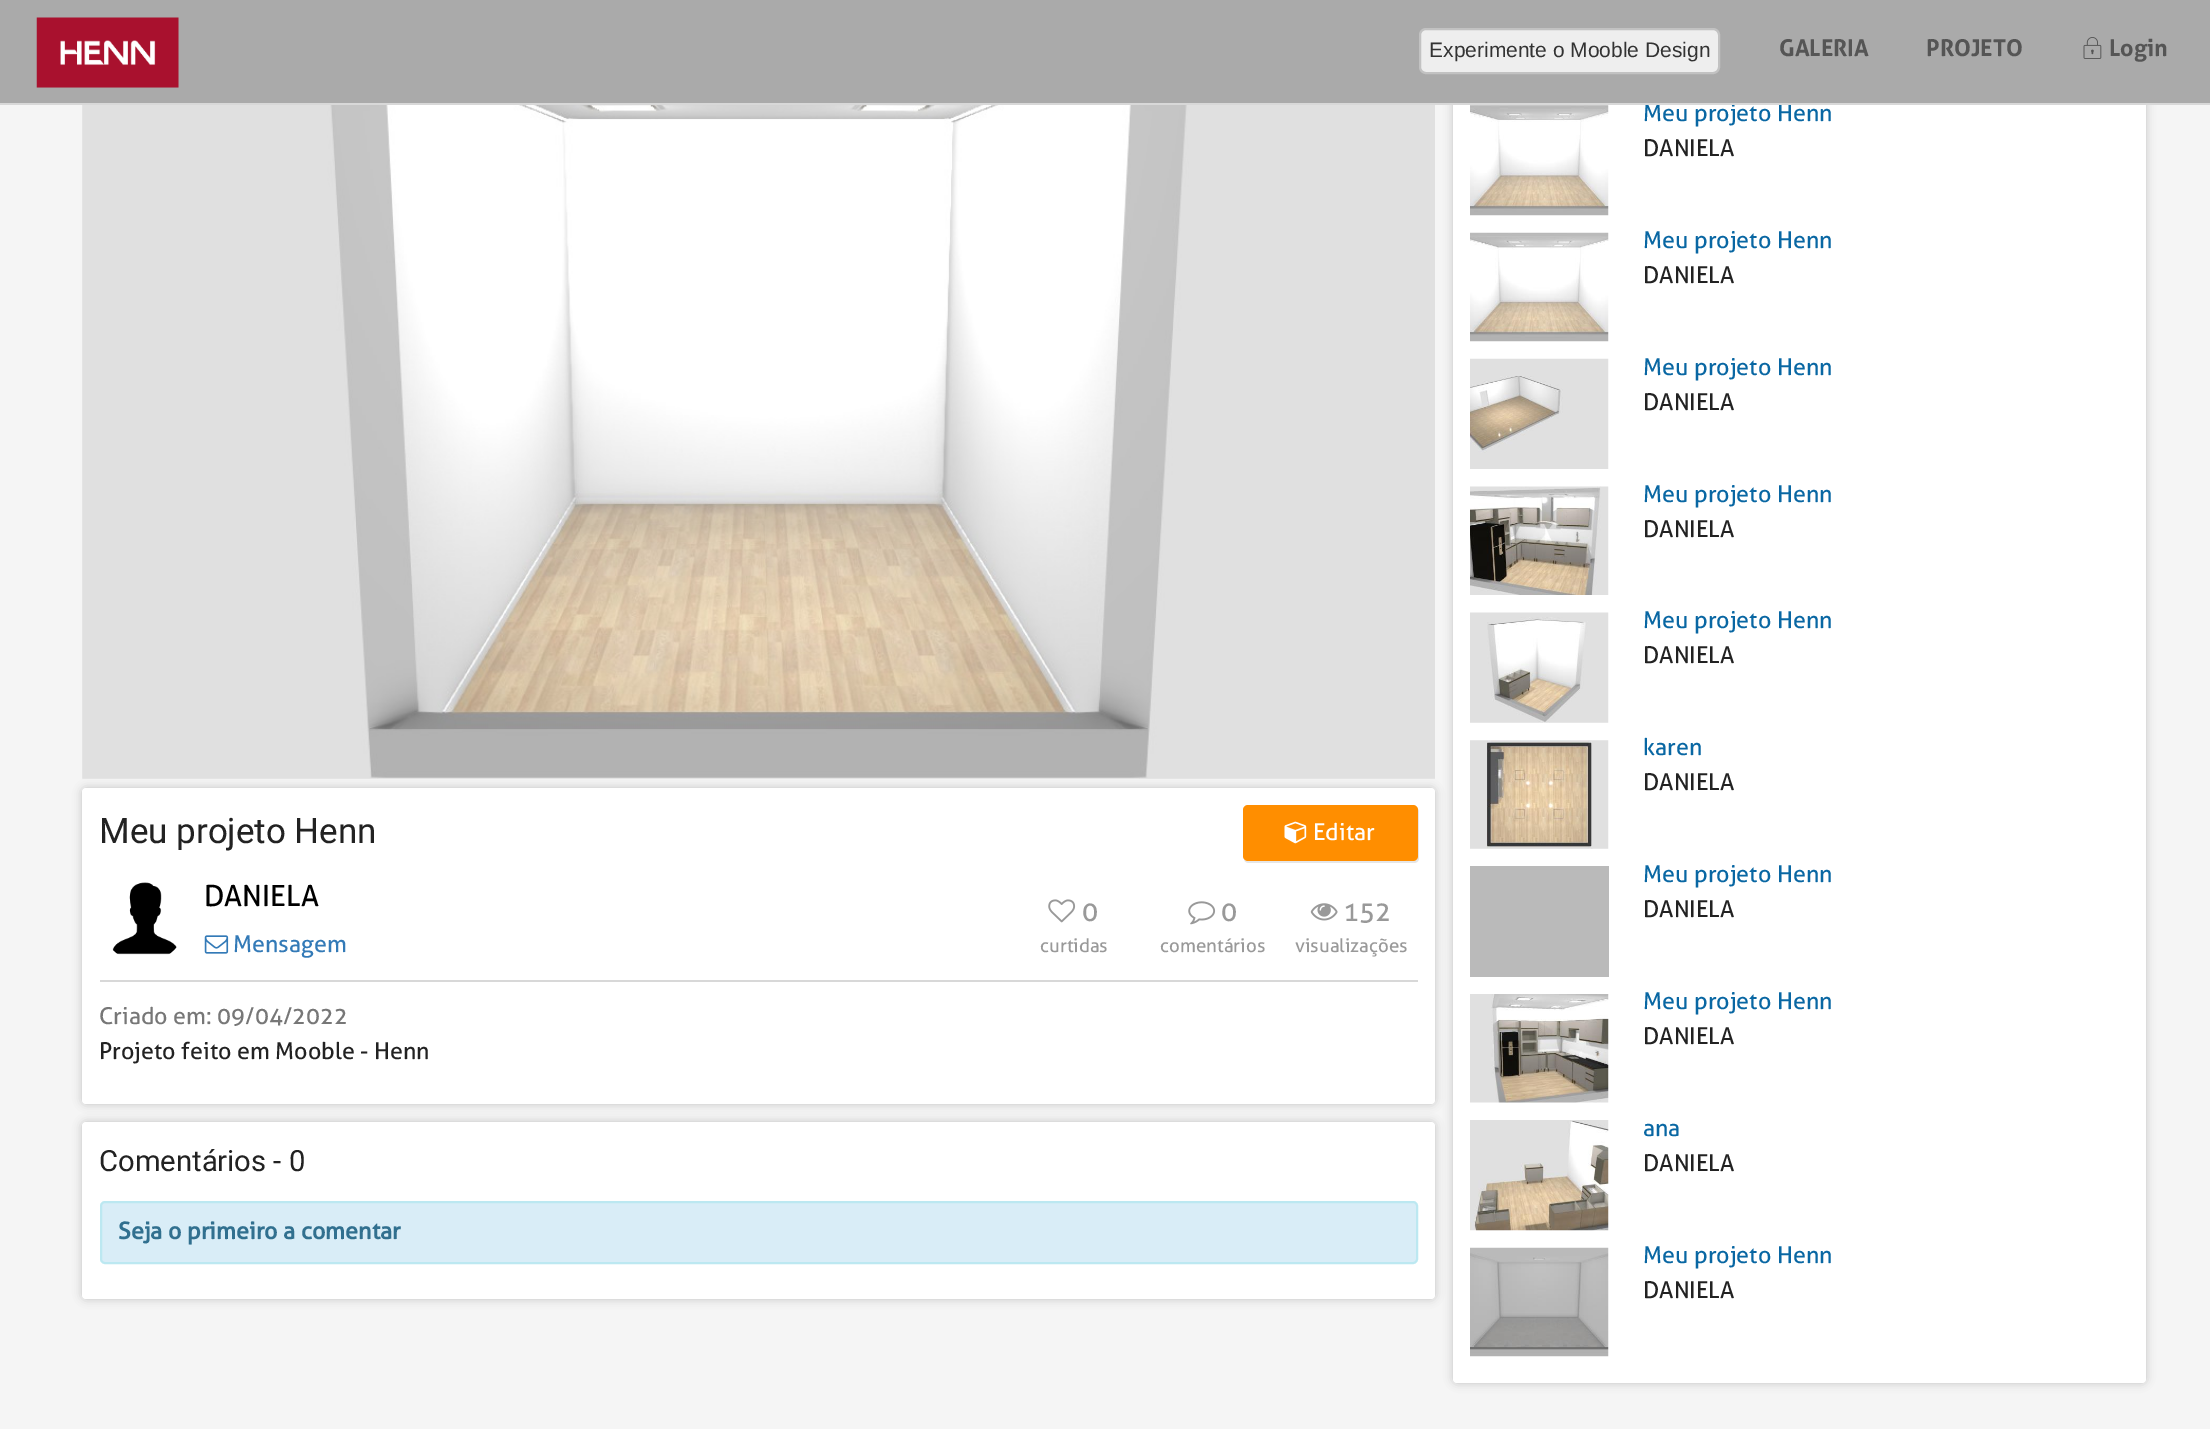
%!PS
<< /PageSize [2210 1429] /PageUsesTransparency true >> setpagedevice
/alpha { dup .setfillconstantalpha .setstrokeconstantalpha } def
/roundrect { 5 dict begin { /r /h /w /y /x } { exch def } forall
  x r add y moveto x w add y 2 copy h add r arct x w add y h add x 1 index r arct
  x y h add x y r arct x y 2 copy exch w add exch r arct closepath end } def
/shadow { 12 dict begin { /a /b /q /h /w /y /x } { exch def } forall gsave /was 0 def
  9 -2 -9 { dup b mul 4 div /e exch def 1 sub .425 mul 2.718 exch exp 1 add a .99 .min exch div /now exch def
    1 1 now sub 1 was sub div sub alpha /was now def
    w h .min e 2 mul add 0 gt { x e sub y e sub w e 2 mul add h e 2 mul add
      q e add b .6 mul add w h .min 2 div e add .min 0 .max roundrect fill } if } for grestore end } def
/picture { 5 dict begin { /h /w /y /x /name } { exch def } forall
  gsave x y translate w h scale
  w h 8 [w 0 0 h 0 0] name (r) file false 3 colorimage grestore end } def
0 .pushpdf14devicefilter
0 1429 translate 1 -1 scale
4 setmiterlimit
0.961 setgray
0 0 2210 1429 rectfill
0 setgray
1453 18 693 1365 4 4.5 0.2 shadow
1 setgray
1453 18 693 1365 4 roundrect fill
0.667 setgray
0 0 2210 103 rectfill
/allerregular-Regular [23.3 0 0 -23.3 0 0] selectfont
0.035 0.404 0.639 setrgbcolor
1643 121 moveto (Meu projeto Henn) show
0.847 setgray
0 103 2210 2 rectfill
(img1.rgb) 36 17 143 71 picture
0.933 setgray
1420 29 299 44 6 roundrect gsave fill grestore
0.761 setgray
2 setlinewidth
stroke
/LiberationSans-Regular [21 0 0 -21 0 0] selectfont
0.2 setgray
1429 57 moveto (Experimente o Mooble Design) show
/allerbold-Bold [23.3 0 0 -23.3 0 0] selectfont
0.333 setgray
1779 56 moveto (GALERIA) show
1926 56 moveto (PROJETO) show
(img2.rgb) 2083 37 19 22 picture
2109 56 moveto (Login) show
0 setgray
82 788 1353 316 4 4.5 0.2 shadow
(img3.rgb) 82 105 1353 674 picture
1 setgray
82 788 1353 316 4 roundrect fill
/Roboto-Regular [35 0 0 -35 0 0] selectfont
0.133 setgray
99 843 moveto (Meu projeto Henn) show
0.902 setgray
newpath 1244 860 moveto 1245 862 1247 863 1249 863 curveto 1414 863 lineto 1417 863 1419 861 1419 858 curveto 1419 812 lineto 1419 810 1418 809 1417 808 curveto 1418 810 lineto 1418 856 lineto 1418 859 1415 861 1412 861 curveto 1248 861 lineto 1246 861 1245 861 1244 860 curveto closepath fill
1 0.557 0 setrgbcolor
1243 805 175 56 5 roundrect fill
(img4.rgb) 1284 821 23 23 picture
/allerregular-Regular [23.3 0 0 -23.3 0 0] selectfont
1 setgray
1313 840 moveto (Editar) show
(img5.rgb) 112 882 65 73 picture
/allerregular-Regular [29.25 0 0 -29.25 0 0] selectfont
0 setgray
204 906 moveto (DANIELA) show
(img6.rgb) 204 935 25 19 picture
/allerregular-Regular [23.3 0 0 -23.3 0 0] selectfont
0.2 0.478 0.718 setrgbcolor
233 952 moveto (Mensagem) show
(img7.rgb) 1048 899 28 24 picture
/allerregular-Regular [27 0 0 -27 0 0] selectfont
0.6 setgray
1082 921 moveto (0) show
/allerregular-Regular [18.75 0 0 -18.75 0 0] selectfont
1040 952 moveto (curtidas) show
(img8.rgb) 1188 901 28 24 picture
/allerregular-Regular [27 0 0 -27 0 0] selectfont
1221 921 moveto (0) show
/allerregular-Regular [18.75 0 0 -18.75 0 0] selectfont
1160 952 moveto (comentários) show
(img9.rgb) 1310 903 28 18 picture
/allerregular-Regular [27 0 0 -27 0 0] selectfont
1343 921 moveto (152) show
/allerregular-Regular [18.75 0 0 -18.75 0 0] selectfont
1295 952 moveto (visualizações) show
0.847 setgray
100 980 1318 2 rectfill
/allerregular-Regular [23.3 0 0 -23.3 0 0] selectfont
0.467 setgray
99 1024 moveto (Criado em: 09/04/2022) show
0.133 setgray
99 1059 moveto (Projeto feito em Mooble - Henn) show
0 setgray
82 1122 1353 177 4 4.5 0.2 shadow
1 setgray
82 1122 1353 177 4 roundrect fill
/Roboto-Regular [29.25 0 0 -29.25 0 0] selectfont
0.133 setgray
99 1171 moveto (Comentários - 0) show
0.851 0.929 0.969 setrgbcolor
101 1202 1316 61 4 roundrect gsave fill grestore
0.737 0.91 0.945 setrgbcolor
stroke
/allerregular-Bold [23.3 0 0 -23.3 0 0] selectfont
0.192 0.439 0.561 setrgbcolor
118 1239 moveto (Seja o primeiro a comentar) show
(img10.rgb) 1470 105 139 111 picture
/allerregular-Regular [23.3 0 0 -23.3 0 0] selectfont
0.133 setgray
1643 156 moveto (DANIELA) show
(img11.rgb) 1470 232 139 110 picture
0.035 0.404 0.639 setrgbcolor
1643 248 moveto (Meu projeto Henn) show
0.133 setgray
1643 283 moveto (DANIELA) show
(img12.rgb) 1470 358 139 111 picture
0.035 0.404 0.639 setrgbcolor
1643 375 moveto (Meu projeto Henn) show
0.133 setgray
1643 410 moveto (DANIELA) show
(img13.rgb) 1470 486 139 109 picture
0.035 0.404 0.639 setrgbcolor
1643 502 moveto (Meu projeto Henn) show
0.133 setgray
1643 537 moveto (DANIELA) show
(img14.rgb) 1470 612 139 111 picture
0.035 0.404 0.639 setrgbcolor
1643 628 moveto (Meu projeto Henn) show
0.133 setgray
1643 663 moveto (DANIELA) show
(img15.rgb) 1470 740 139 109 picture
0.035 0.404 0.639 setrgbcolor
1643 755 moveto (karen) show
0.133 setgray
1643 790 moveto (DANIELA) show
0.729 setgray
1470 866 139 111 rectfill
0.035 0.404 0.639 setrgbcolor
1643 882 moveto (Meu projeto Henn) show
0.133 setgray
1643 917 moveto (DANIELA) show
(img16.rgb) 1470 994 139 109 picture
0.035 0.404 0.639 setrgbcolor
1643 1009 moveto (Meu projeto Henn) show
0.133 setgray
1643 1044 moveto (DANIELA) show
(img17.rgb) 1470 1120 139 111 picture
0.035 0.404 0.639 setrgbcolor
1643 1136 moveto (ana) show
0.133 setgray
1643 1171 moveto (DANIELA) show
(img18.rgb) 1470 1247 139 110 picture
0.035 0.404 0.639 setrgbcolor
1643 1263 moveto (Meu projeto Henn) show
0.133 setgray
1643 1298 moveto (DANIELA) show
.poppdf14devicefilter showpage
